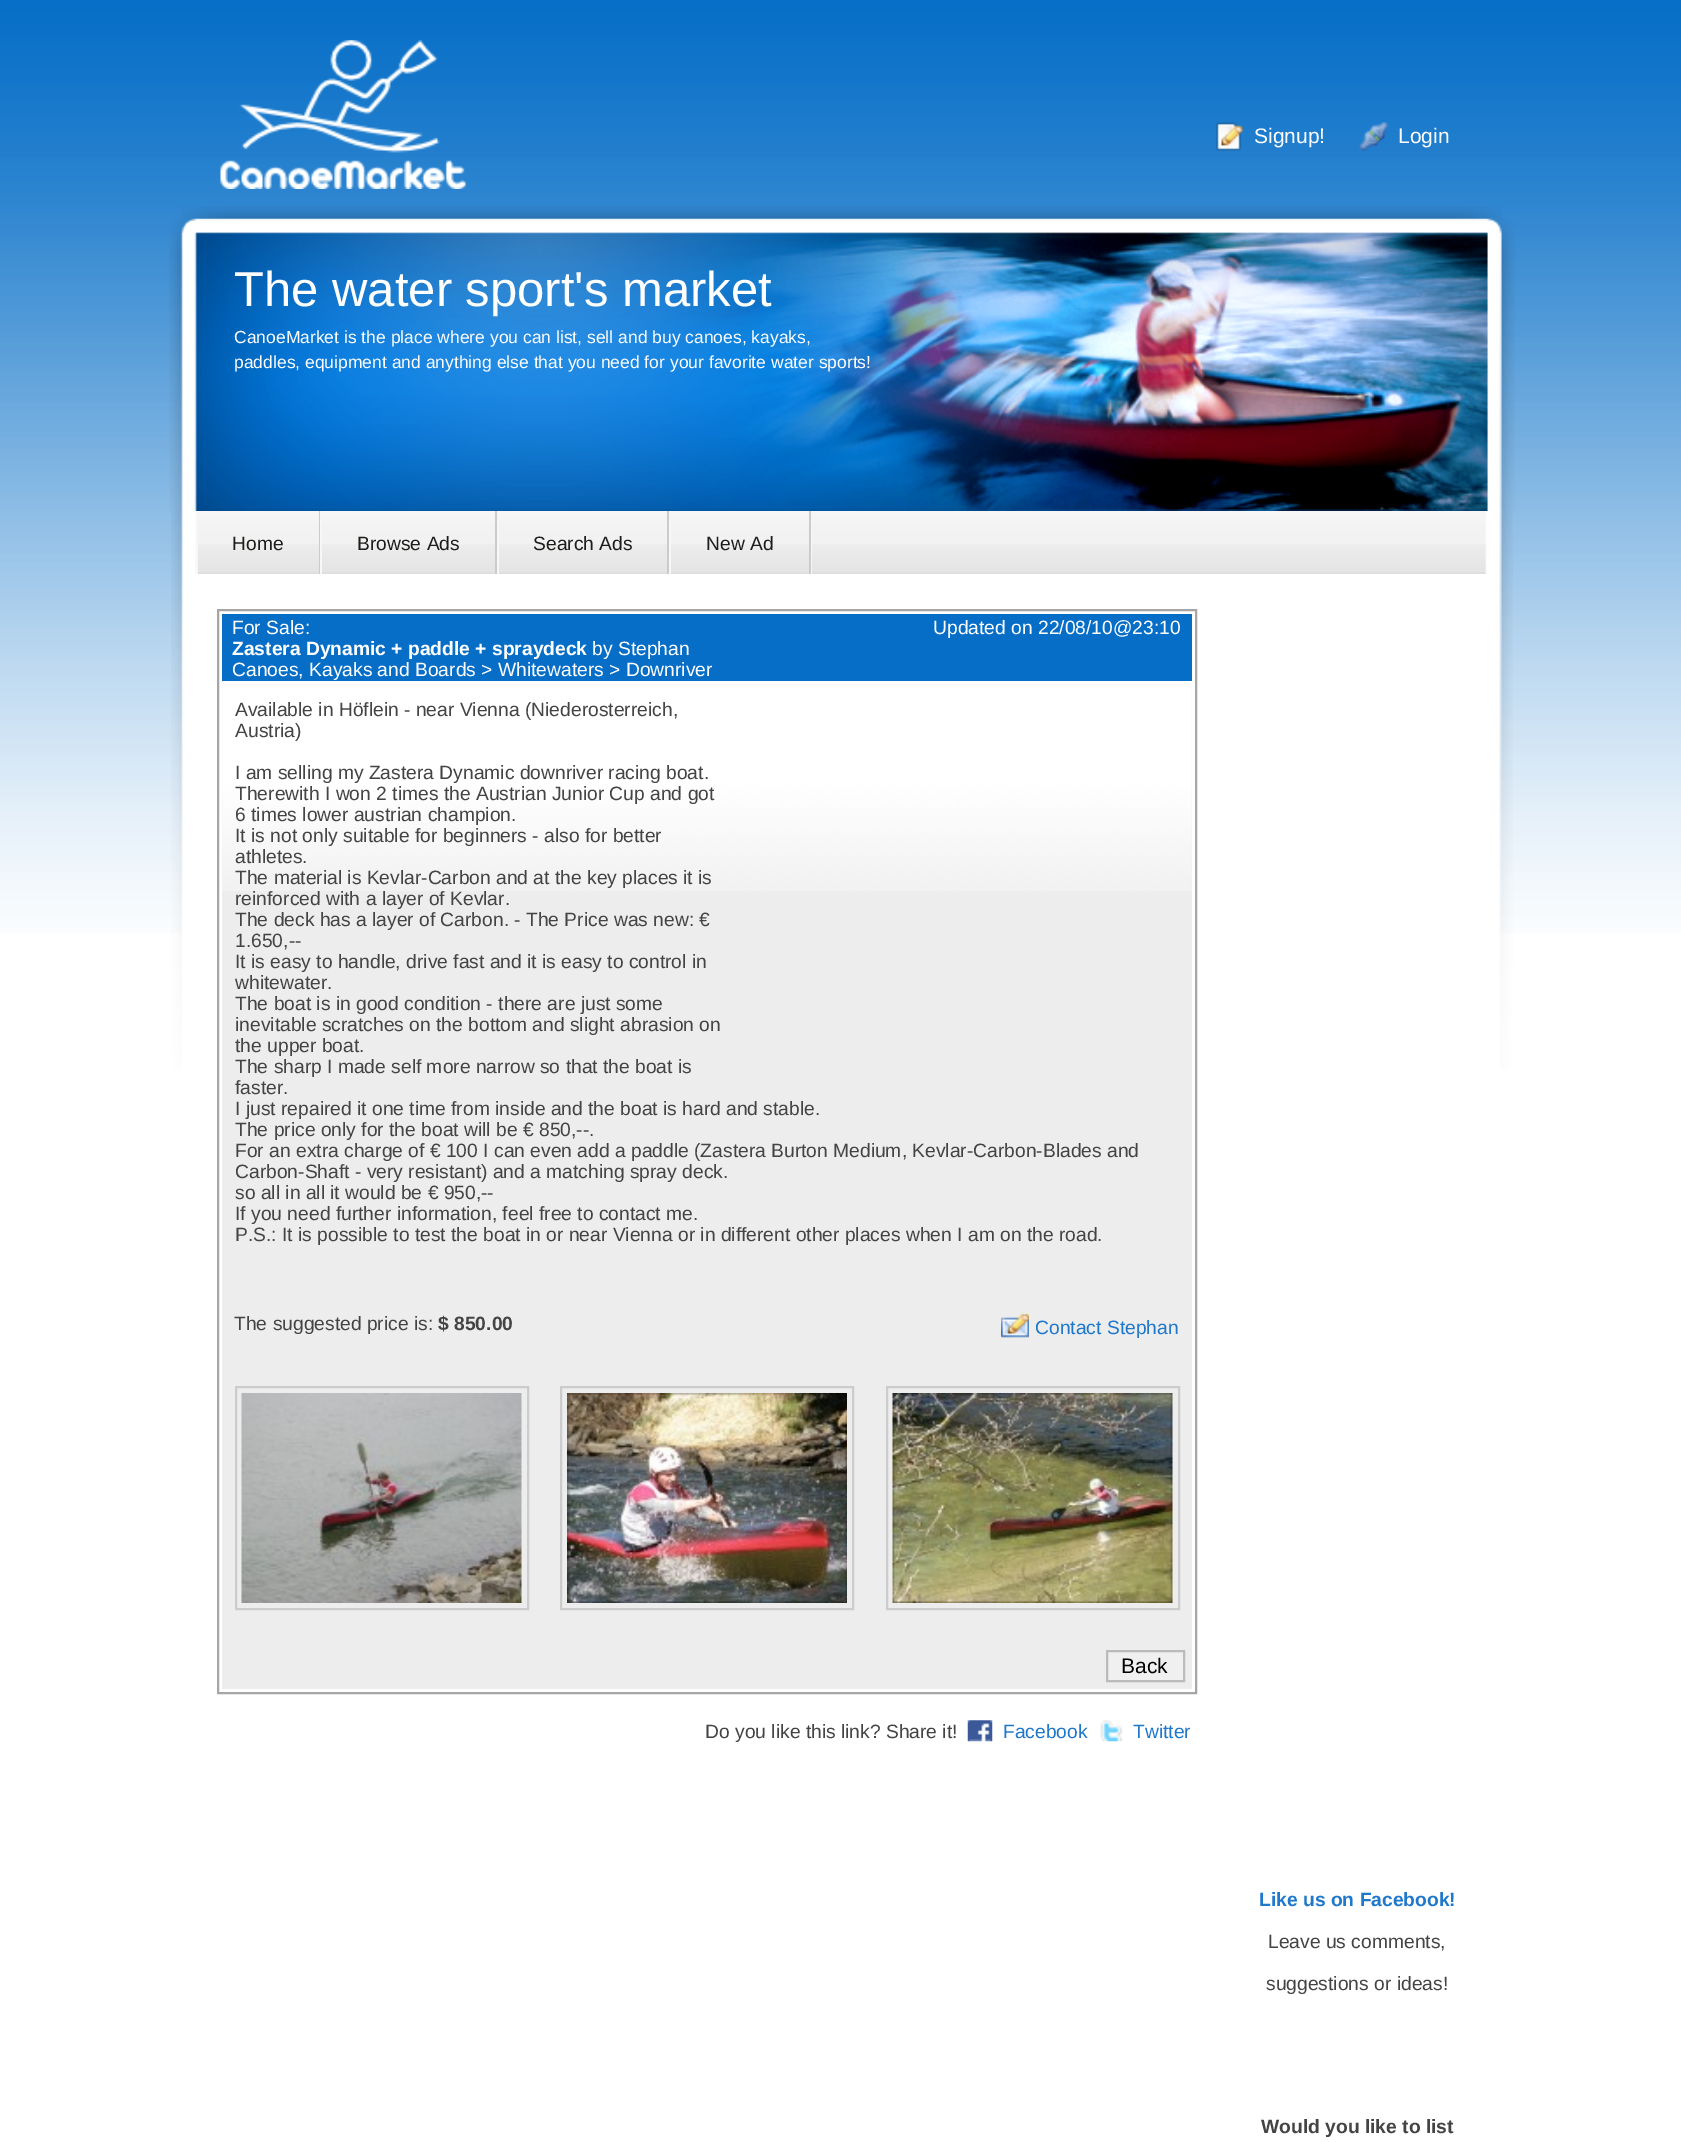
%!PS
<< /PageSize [1681 2142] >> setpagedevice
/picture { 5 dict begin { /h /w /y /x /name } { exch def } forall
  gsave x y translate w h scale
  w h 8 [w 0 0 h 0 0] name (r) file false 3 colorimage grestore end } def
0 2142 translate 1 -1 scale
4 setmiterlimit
1 setgray
0 0 1681 2142 rectfill
(img1.rgb) 0 0 1681 933 picture
(img2.rgb) 181 206 1321 13 picture
(img3.rgb) 220 40 246 149 picture
(img4.rgb) 1216 122 27 29 picture
/LiberationSans-Regular [21 0 0 -21 0 0] selectfont
1254 143 moveto (Signup!) show
(img5.rgb) 1359 122 29 29 picture
1398 143 moveto (Login) show
(img6.rgb) 169 218 1346 293 picture
/LiberationSans-Regular [49 0 0 -49 0 0] selectfont
234 306 moveto (The water sport's market) show
/LiberationSans-Regular [17.5 0 0 -17.5 0 0] selectfont
234 343 moveto (CanoeMarket is the place where you can list, sell and buy canoes, kayaks,) show
234 368 moveto (paddles, equipment and anything else that you need for your favorite water sports!) show
(img7.rgb) 171 511 1342 63 picture
(img8.rgb) 198 511 1286 63 picture
0.969 setgray
811 520 1 54 rectfill
0.796 setgray
319 511 1 63 rectfill
0.969 setgray
196 511 2 63 rectfill
/LiberationSans-Regular [19.25 0 0 -19.25 0 0] selectfont
0.114 0.114 0.106 setrgbcolor
232 550 moveto (Home) show
0.796 setgray
495 511 2 63 rectfill
0.969 setgray
320 520 2 54 rectfill
0.114 0.114 0.106 setrgbcolor
357 550 moveto (Browse Ads) show
0.796 setgray
667 511 2 63 rectfill
0.969 setgray
497 520 2 54 rectfill
0.114 0.114 0.106 setrgbcolor
533 550 moveto (Search Ads) show
0.796 setgray
809 511 2 63 rectfill
0.969 setgray
669 520 2 54 rectfill
0.114 0.114 0.106 setrgbcolor
706 550 moveto (New Ad) show
(img9.rgb) 171 574 1342 495 picture
0.651 setgray
2 setlinewidth
218 610 978 1083 rectstroke
0.024 0.431 0.78 setrgbcolor
222 614 970 67 rectfill
1 setgray
232 634 moveto (For Sale:) show
/LiberationSans-Bold [19.25 0 0 -19.25 0 0] selectfont
232 655 moveto (Zastera Dynamic + paddle + spraydeck) show
/LiberationSans-Regular [19.25 0 0 -19.25 0 0] selectfont
592 655 moveto (by Stephan) show
232 676 moveto (Canoes, Kayaks and Boards > Whitewaters > Downriver) show
933 634 moveto (Updated on 22/08/10@23:10) show
0.929 setgray
222 684 970 1005 rectfill
(img10.rgb) 222 684 970 207 picture
0.267 setgray
235 716 moveto (Available in Höflein - near Vienna \(Niederosterreich,) show
235 737 moveto (Austria\)) show
235 779 moveto (I am selling my Zastera Dynamic downriver racing boat.) show
235 800 moveto (Therewith I won 2 times the Austrian Junior Cup and got) show
235 821 moveto (6 times lower austrian champion.) show
235 842 moveto (It is not only suitable for beginners - also for better) show
235 863 moveto (athletes.) show
235 884 moveto (The material is Kevlar-Carbon and at the key places it is) show
235 905 moveto (reinforced with a layer of Kevlar.) show
235 926 moveto (The deck has a layer of Carbon. - The Price was new: €) show
235 947 moveto (1.650,--) show
235 968 moveto (It is easy to handle, drive fast and it is easy to control in) show
235 989 moveto (whitewater.) show
235 1010 moveto (The boat is in good condition - there are just some) show
235 1031 moveto (inevitable scratches on the bottom and slight abrasion on) show
235 1052 moveto (the upper boat.) show
235 1073 moveto (The sharp I made self more narrow so that the boat is) show
235 1094 moveto (faster.) show
235 1115 moveto (I just repaired it one time from inside and the boat is hard and stable.) show
235 1136 moveto (The price only for the boat will be € 850,--.) show
235 1157 moveto (For an extra charge of € 100 I can even add a paddle \(Zastera Burton Medium, Kevlar-Carbon-Blades and) show
235 1178 moveto (Carbon-Shaft - very resistant\) and a matching spray deck.) show
235 1199 moveto (so all in all it would be € 950,--) show
235 1220 moveto (If you need further information, feel free to contact me.) show
235 1241 moveto (P.S.: It is possible to test the boat in or near Vienna or in different other places when I am on the road.) show
234 1330 moveto (The suggested price is:) show
/LiberationSans-Bold [19.25 0 0 -19.25 0 0] selectfont
438 1330 moveto ($ 850.00) show
(img11.rgb) 1001 1313 28 25 picture
/LiberationSans-Regular [19.25 0 0 -19.25 0 0] selectfont
0.122 0.471 0.792 setrgbcolor
1035 1334 moveto (Contact Stephan) show
0.8 setgray
236 1387 292 222 rectstroke
(img12.rgb) 241 1393 281 210 picture
561 1387 292 222 rectstroke
(img13.rgb) 567 1393 280 210 picture
887 1387 292 222 rectstroke
(img14.rgb) 892 1393 281 210 picture
0.941 setgray
newpath 1107 1651 moveto 1184 1651 lineto 1184 1681 lineto 1107 1681 lineto closepath gsave fill grestore
0.733 setgray
stroke
/LiberationSans-Regular [21 0 0 -21 0 0] selectfont
0 setgray
1121 1673 moveto (Back) show
/LiberationSans-Regular [19.25 0 0 -19.25 0 0] selectfont
0.267 setgray
705 1738 moveto (Do you like this link? Share it!) show
(img15.rgb) 967 1720 26 22 picture
0.122 0.471 0.792 setrgbcolor
1003 1738 moveto (Facebook) show
(img16.rgb) 1100 1720 23 22 picture
1133 1738 moveto (Twitter) show
/LiberationSans-Bold [19.25 0 0 -19.25 0 0] selectfont
1259 1906 moveto (Like us on Facebook!) show
/LiberationSans-Regular [19.25 0 0 -19.25 0 0] selectfont
0.267 setgray
1268 1948 moveto (Leave us comments,) show
1266 1990 moveto (suggestions or ideas!) show
/LiberationSans-Bold [19.25 0 0 -19.25 0 0] selectfont
1261 2133 moveto (Would you like to list) show
showpage
